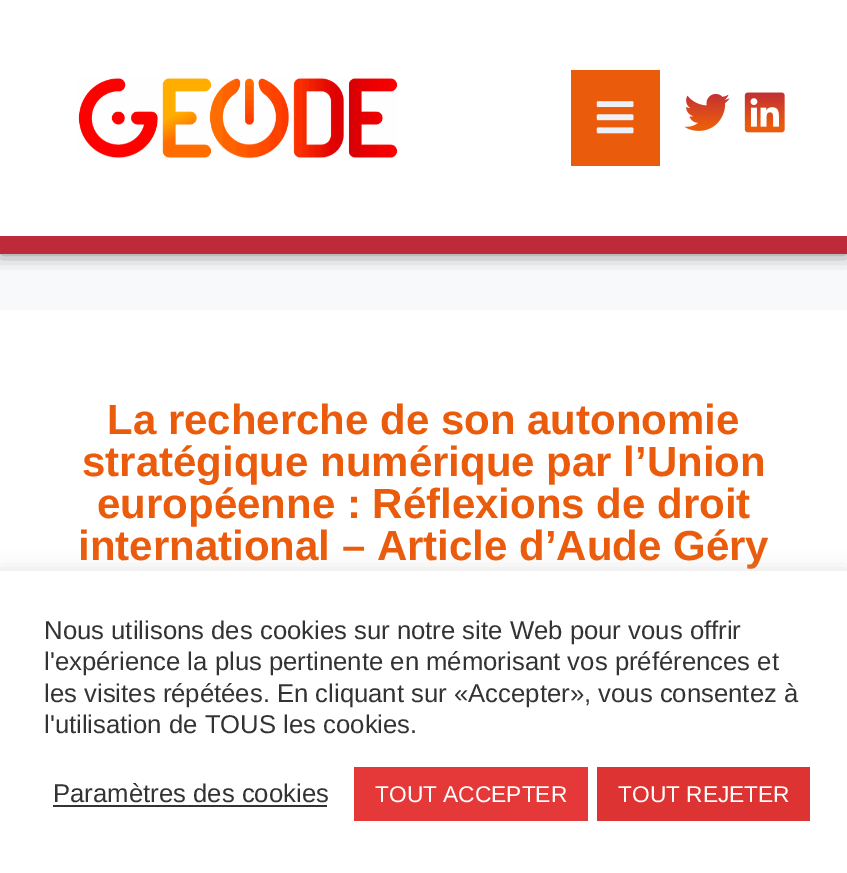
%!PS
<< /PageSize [847 873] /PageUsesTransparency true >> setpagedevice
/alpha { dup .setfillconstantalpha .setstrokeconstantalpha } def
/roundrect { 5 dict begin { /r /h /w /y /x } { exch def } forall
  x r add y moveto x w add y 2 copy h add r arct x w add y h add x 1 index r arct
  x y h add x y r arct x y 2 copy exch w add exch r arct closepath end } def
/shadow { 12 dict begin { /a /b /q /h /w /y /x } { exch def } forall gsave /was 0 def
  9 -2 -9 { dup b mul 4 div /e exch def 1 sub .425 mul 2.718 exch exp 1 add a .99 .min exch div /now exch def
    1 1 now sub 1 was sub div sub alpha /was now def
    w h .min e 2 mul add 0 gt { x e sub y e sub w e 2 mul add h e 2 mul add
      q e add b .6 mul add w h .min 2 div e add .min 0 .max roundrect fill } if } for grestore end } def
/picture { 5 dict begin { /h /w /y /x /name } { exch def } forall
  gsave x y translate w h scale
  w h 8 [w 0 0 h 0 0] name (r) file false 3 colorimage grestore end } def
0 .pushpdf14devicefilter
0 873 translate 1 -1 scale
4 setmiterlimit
1 setgray
0 0 847 873 rectfill
0.973 0.976 0.98 setrgbcolor
0 254 847 56 rectfill
gsave
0 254 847 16 rectclip
0 setgray
0 0 847 254 0 9 0.5 shadow
grestore
0.741 0.165 0.227 setrgbcolor
0 236 847 18 rectfill
(img1.rgb) 78 78 320 81 picture
0.918 0.357 0.047 setrgbcolor
571 70 89 96 rectfill
(img2.rgb) 596 101 38 33 picture
(img3.rgb) 684 94 46 37 picture
(img4.rgb) 744 92 41 41 picture
/LiberationSans-Bold [42 0 0 -42 0 0] selectfont
107 434 moveto (La recherche de son autonomie) show
82 476 moveto (stratégique numérique par l’Union) show
97 518 moveto (européenne : Réflexions de droit) show
78 560 moveto (international – Article d’Aude Géry) show
0.675 0.671 0.671 setrgbcolor
0 569 847 303 0 9 0.3 shadow
1 setgray
0 571 847 302 rectfill
/LiberationSans-Regular [25.7 0 0 -25.7 0 0] selectfont
0.2 setgray
44 639 moveto (Nous utilisons des cookies sur notre site Web pour vous offrir) show
44 670 moveto (l'expérience la plus pertinente en mémorisant vos préférences et) show
44 702 moveto (les visites répétées. En cliquant sur «Accepter», vous consentez à) show
44 733 moveto (l'utilisation de TOUS les cookies.) show
53 802 moveto (Paramètres des cookies) show
53 805 274 2 rectfill
0.898 0.224 0.224 setrgbcolor
354 767 234 54 rectfill
/LiberationSans-Regular [22.75 0 0 -22.75 0 0] selectfont
1 setgray
375 802 moveto (TOUT ACCEPTER) show
0.867 0.2 0.2 setrgbcolor
597 767 213 54 rectfill
1 setgray
618 802 moveto (TOUT REJETER) show
.poppdf14devicefilter showpage
